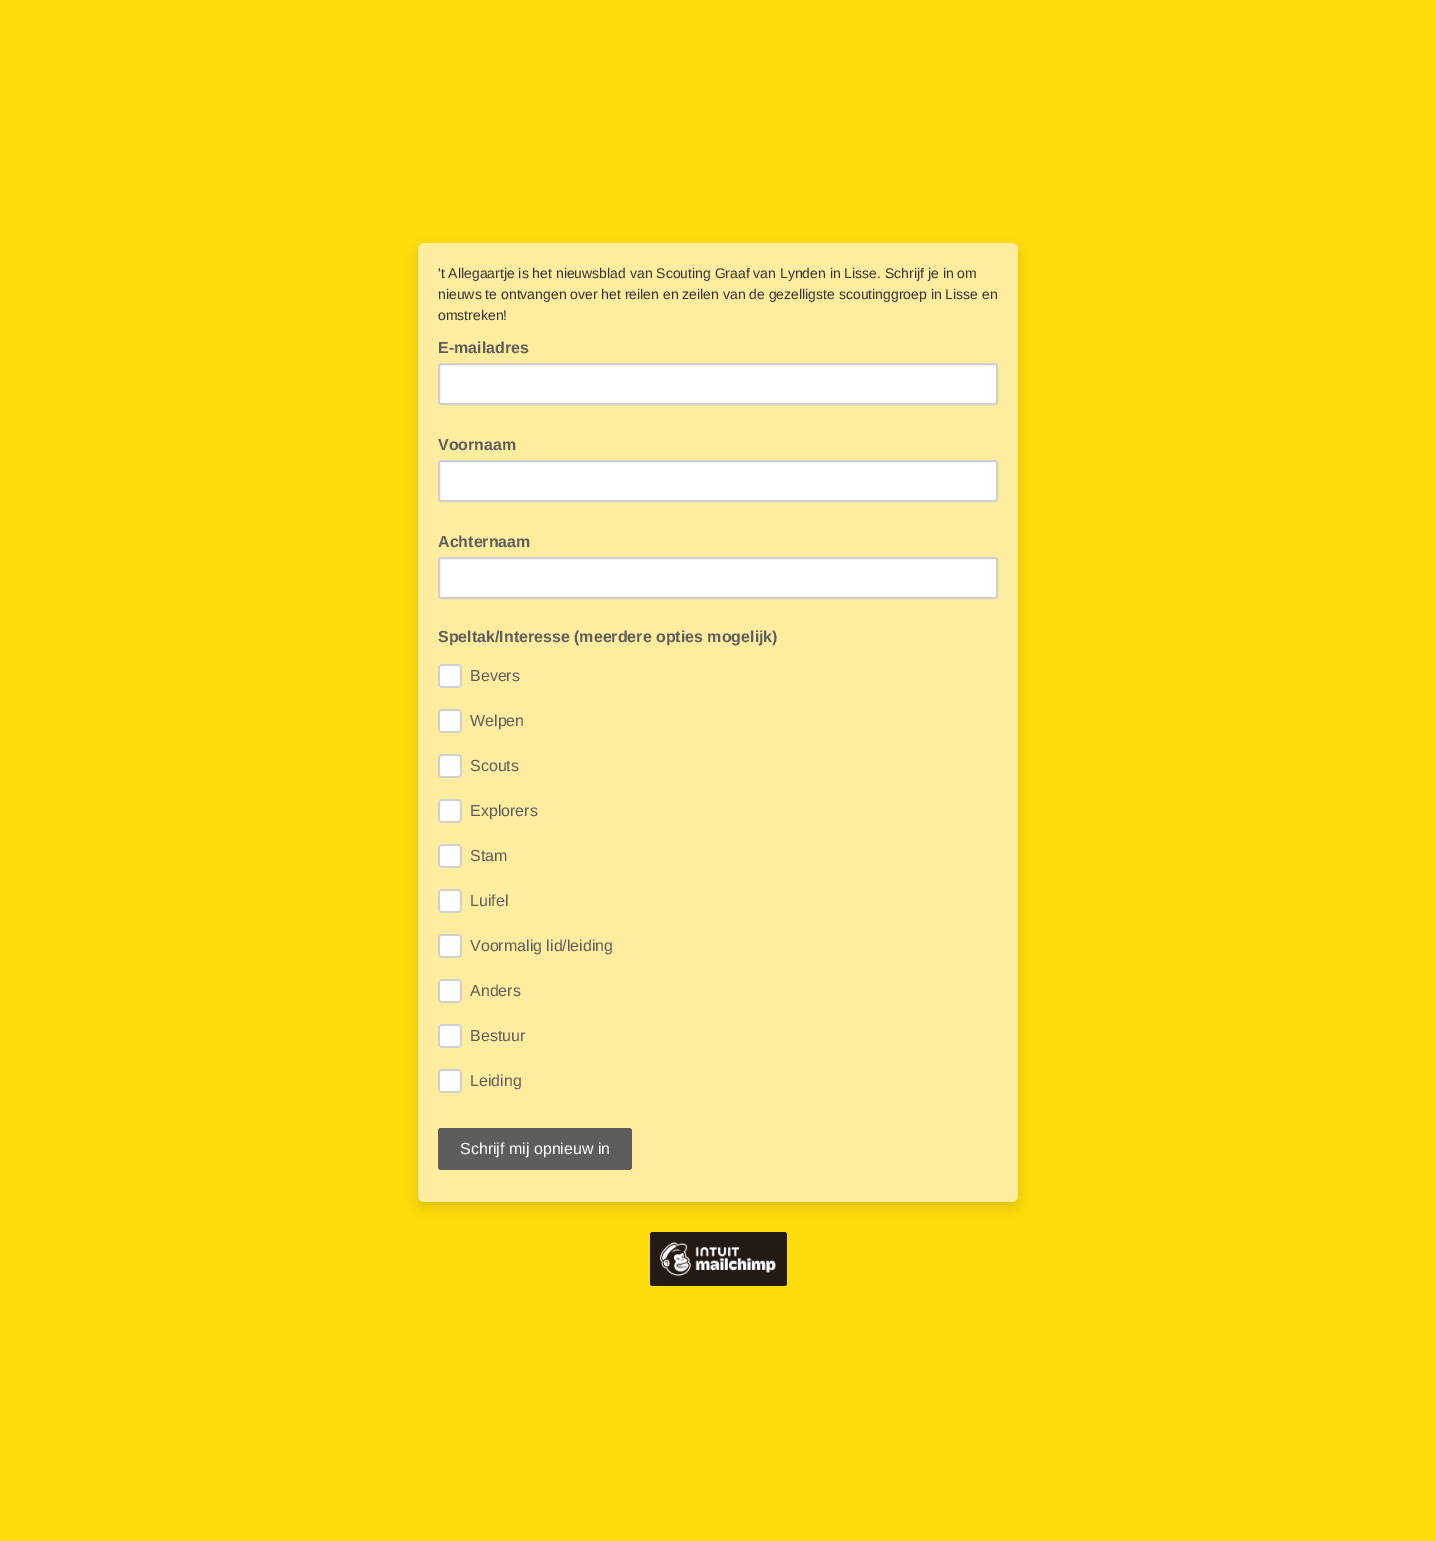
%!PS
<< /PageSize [1436 1541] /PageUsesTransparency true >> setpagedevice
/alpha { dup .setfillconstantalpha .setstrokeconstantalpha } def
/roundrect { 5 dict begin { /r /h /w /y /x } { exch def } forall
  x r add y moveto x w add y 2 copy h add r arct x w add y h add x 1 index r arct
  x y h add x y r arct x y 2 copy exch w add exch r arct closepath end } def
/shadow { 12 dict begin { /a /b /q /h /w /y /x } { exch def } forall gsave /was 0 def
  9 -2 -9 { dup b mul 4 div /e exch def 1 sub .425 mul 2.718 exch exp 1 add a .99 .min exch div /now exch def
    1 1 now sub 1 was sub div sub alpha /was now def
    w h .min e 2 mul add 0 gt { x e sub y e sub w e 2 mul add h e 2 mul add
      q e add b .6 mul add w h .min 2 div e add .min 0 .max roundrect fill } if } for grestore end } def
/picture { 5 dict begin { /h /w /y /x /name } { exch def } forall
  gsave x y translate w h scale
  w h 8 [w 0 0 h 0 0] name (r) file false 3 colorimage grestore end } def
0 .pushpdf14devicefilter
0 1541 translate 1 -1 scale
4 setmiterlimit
0.996 0.859 0.039 setrgbcolor
0 0 1436 1541 rectfill
0.051 0.071 0.086 setrgbcolor
418 249 600 959 6 6 0.12 shadow
1 0.929 0.624 setrgbcolor
418 243 600 959 6 roundrect fill
/LiberationSans-Regular [14 0 0 -14 0 0] selectfont
0.2 setgray
438 278 moveto ('t Allegaartje is het nieuwsblad van Scouting Graaf van Lynden in Lisse. Schrijf je in om) show
438 299 moveto (nieuws te ontvangen over het reilen en zeilen van de gezelligste scoutinggroep in Lisse en) show
438 320 moveto (omstreken!) show
/LiberationSans-Bold [16 0 0 -16 0 0] selectfont
0.365 setgray
438 353 moveto (E-mailadres) show
1 setgray
439 364 558 40 2 roundrect gsave fill grestore
0.816 setgray
2 setlinewidth
stroke
0.365 setgray
438 450 moveto (Voornaam) show
1 setgray
439 461 558 40 2 roundrect gsave fill grestore
0.816 setgray
stroke
0.365 setgray
438 547 moveto (Achternaam) show
1 setgray
439 558 558 40 2 roundrect gsave fill grestore
0.816 setgray
stroke
0.365 setgray
438 642 moveto (Speltak/Interesse \(meerdere opties mogelijk\)) show
(img1.rgb) 438 664 24 24 picture
/LiberationSans-Regular [16 0 0 -16 0 0] selectfont
470 681 moveto (Bevers) show
(img1.rgb) 438 709 24 24 picture
470 726 moveto (Welpen) show
(img1.rgb) 438 754 24 24 picture
470 771 moveto (Scouts) show
(img1.rgb) 438 799 24 24 picture
470 816 moveto (Explorers) show
(img1.rgb) 438 844 24 24 picture
470 861 moveto (Stam) show
(img1.rgb) 438 889 24 24 picture
470 906 moveto (Luifel) show
(img1.rgb) 438 934 24 24 picture
470 951 moveto (Voormalig lid/leiding) show
(img1.rgb) 438 979 24 24 picture
470 996 moveto (Anders) show
(img1.rgb) 438 1024 24 24 picture
470 1041 moveto (Bestuur) show
(img1.rgb) 438 1069 24 24 picture
470 1086 moveto (Leiding) show
438 1128 194 42 3 roundrect fill
1 setgray
460 1154 moveto (Schrijf mij opnieuw in) show
(img2.rgb) 650 1232 137 54 picture
.poppdf14devicefilter showpage
